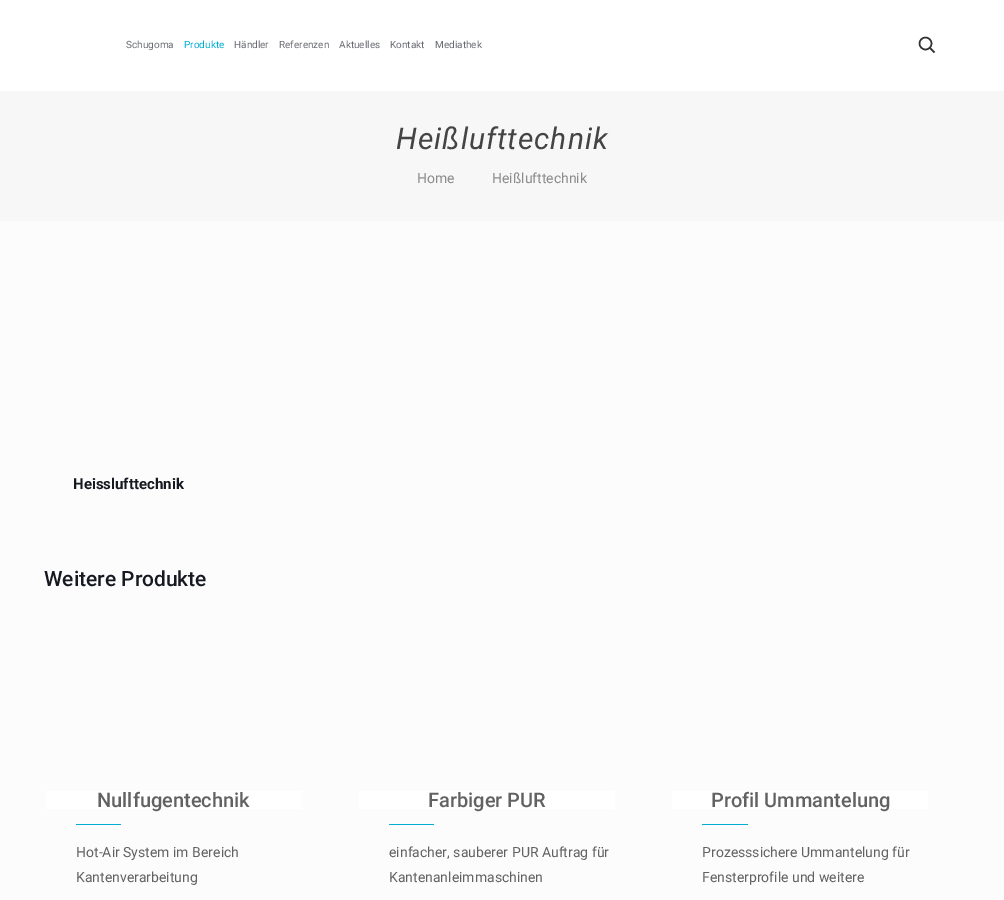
%!PS
<< /PageSize [1004 900] >> setpagedevice
0 900 translate 1 -1 scale
4 setmiterlimit
0.988 setgray
0 0 1004 900 rectfill
1 setgray
0 0 1004 91 rectfill
/Roboto-Regular [10 0 0 -10 0 0] selectfont
0.416 0.424 0.455 setrgbcolor
126 48 moveto (Schugoma) show
0 0.682 0.831 setrgbcolor
184 48 moveto (Produkte) show
0.416 0.424 0.455 setrgbcolor
234 48 moveto (Händler) show
279 48 moveto (Referenzen) show
339 48 moveto (Aktuelles) show
390 48 moveto (Kontakt) show
435 48 moveto (Mediathek) show
0.2 setgray
1.5 setlinewidth
newpath 925.5 43.5 6 0 360 arc closepath stroke
newpath 929.5 47.5 moveto 934.5 52.5 lineto stroke
0.969 setgray
0 91 1004 130 rectfill
/Roboto-Italic [30 0 0 -30 0 0] selectfont
0.267 setgray
396 149 moveto 1 0 (Heißlufttechnik) ashow
/Roboto-Regular [14 0 0 -14 0 0] selectfont
0.549 setgray
417 183 moveto (Home) show
492 183 moveto (Heißlufttechnik) show
/Roboto-Bold [15 0 0 -15 0 0] selectfont
0.086 0.098 0.133 setrgbcolor
73 489 moveto (Heisslufttechnik) show
/Roboto-Medium [21 0 0 -21 0 0] selectfont
44 586 moveto (Weitere Produkte) show
1 setgray
46 791 256 18 rectfill
/Roboto-Medium [20 0 0 -20 0 0] selectfont
0.384 setgray
97 807 moveto (Nullfugentechnik) show
0 0.682 0.831 setrgbcolor
76 824 45 1 rectfill
/Roboto-Regular [14 0 0 -14 0 0] selectfont
0.384 setgray
76 857 moveto (Hot-Air System im Bereich) show
76 882 moveto (Kantenverarbeitung) show
1 setgray
359 791 256 18 rectfill
/Roboto-Medium [20 0 0 -20 0 0] selectfont
0.384 setgray
428 807 moveto (Farbiger PUR) show
0 0.682 0.831 setrgbcolor
389 824 45 1 rectfill
/Roboto-Regular [14 0 0 -14 0 0] selectfont
0.384 setgray
389 857 moveto (einfacher, sauberer PUR Auftrag für) show
389 882 moveto (Kantenanleimmaschinen) show
1 setgray
672 791 256 18 rectfill
/Roboto-Medium [20 0 0 -20 0 0] selectfont
0.384 setgray
711 807 moveto (Profil Ummantelung) show
0 0.682 0.831 setrgbcolor
702 824 46 1 rectfill
/Roboto-Regular [14 0 0 -14 0 0] selectfont
0.384 setgray
702 857 moveto (Prozesssichere Ummantelung für) show
702 882 moveto (Fensterprofile und weitere) show
showpage
